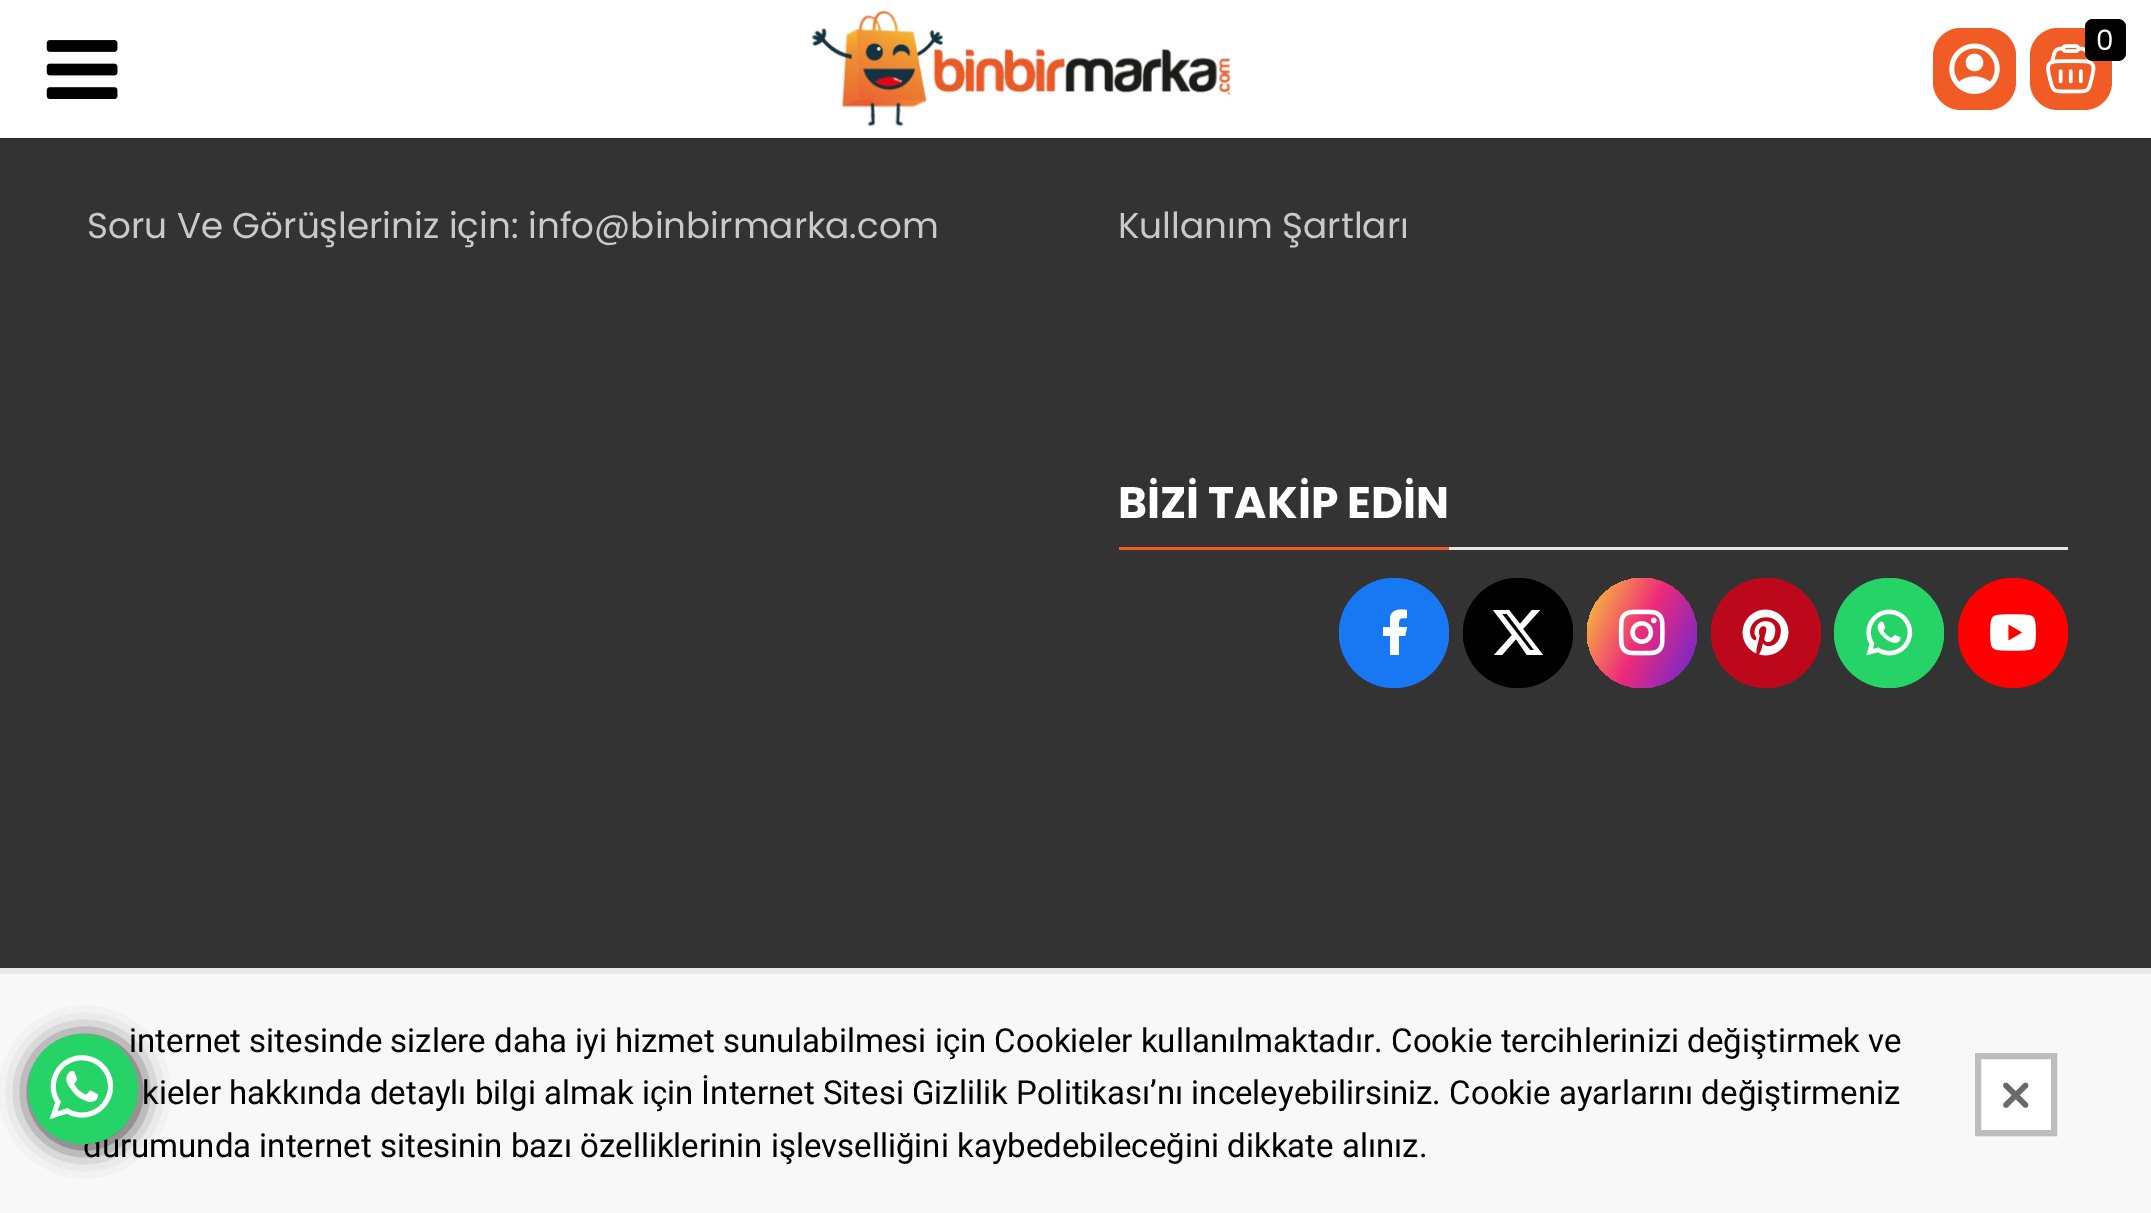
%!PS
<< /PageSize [2151 1213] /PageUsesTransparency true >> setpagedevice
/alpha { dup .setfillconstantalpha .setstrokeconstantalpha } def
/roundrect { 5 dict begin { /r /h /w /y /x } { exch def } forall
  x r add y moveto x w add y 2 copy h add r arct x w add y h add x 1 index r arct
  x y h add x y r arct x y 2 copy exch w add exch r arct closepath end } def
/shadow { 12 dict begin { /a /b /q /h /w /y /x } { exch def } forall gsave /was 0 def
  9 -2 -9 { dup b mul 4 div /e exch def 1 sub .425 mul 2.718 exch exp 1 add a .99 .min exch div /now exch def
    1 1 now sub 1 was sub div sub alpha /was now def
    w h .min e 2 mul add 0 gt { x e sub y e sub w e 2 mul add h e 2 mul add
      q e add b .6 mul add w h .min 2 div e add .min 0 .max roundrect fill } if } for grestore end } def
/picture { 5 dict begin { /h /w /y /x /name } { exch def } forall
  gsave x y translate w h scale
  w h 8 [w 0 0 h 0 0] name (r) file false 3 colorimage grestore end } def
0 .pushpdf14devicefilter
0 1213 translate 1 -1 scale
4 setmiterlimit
0.2 setgray
0 0 2151 1213 rectfill
0 setgray
0 0 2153 138 0 4 0.3 shadow
1 setgray
0 0 2151 138 rectfill
(img1.rgb) 46 40 72 59 picture
(img2.rgb) 811 10 421 117 picture
0.945 0.357 0.149 setrgbcolor
1933 28 83 82 28 roundrect fill
(img3.rgb) 1949 43 51 51 picture
2030 28 82 82 28 roundrect fill
(img4.rgb) 2046 44 50 50 picture
0 setgray
2085 19 41 42 8 roundrect fill
/Poppins-Regular [28 0 0 -28 0 0] selectfont
1 setgray
2096 50 moveto (0) show
/Poppins-Regular [35.75 0 0 -35.75 0 0] selectfont
0.788 setgray
87 238 moveto (Soru Ve Görüşleriniz için: info@binbirmarka.com) show
1118 238 moveto (Kullanım Şartları) show
0.902 setgray
1449 547 619 3 rectfill
/Poppins-Bold [44 0 0 -44 0 0] selectfont
1 setgray
1118 518 moveto (BİZİ TAKİP EDİN) show
0.945 0.357 0.149 setrgbcolor
1119 547 330 3 rectfill
0.094 0.467 0.949 setrgbcolor
newpath 1394 633 55 0 360 arc closepath fill
0.8 alpha
newpath 1394 633 55 0 360 arc closepath fill
1 alpha
1 setgray
newpath 1399 636 moveto 1405 636 lineto 1407 627 lineto 1399 627 lineto 1399 619 1398 618 1407 618 curveto 1407 610 lineto 1400 609 1391 609 1390 618 curveto 1390 627 lineto 1383 627 lineto 1383 636 lineto 1390 636 lineto 1390 655 lineto 1399 655 lineto closepath fill
0 setgray
newpath 1518 633 55 0 360 arc closepath fill
0.8 alpha
newpath 1518 633 55 0 360 arc closepath fill
1 alpha
1 setgray
newpath 1532 610 moveto 1540 610 lineto 1523 629 lineto 1543 655 lineto 1527 655 lineto 1516 639 lineto 1502 655 lineto 1494 655 lineto 1512 635 lineto 1493 610 lineto 1509 610 lineto 1520 624 lineto closepath 1530 650 moveto 1534 650 lineto 1507 614 lineto 1502 614 lineto closepath fill
gsave newpath 1642 633 55 0 360 arc closepath clip newpath
<< /ShadingType 2 /ColorSpace /DeviceRGB /Coords [1576 602 1708 663] /Extend [true true] /Function << /FunctionType 3 /Domain [0 1] /Functions [<< /FunctionType 2 /Domain [0 1] /C0 [0.976 0.808 0.204] /C1 [0.933 0.165 0.482] /N 1 >> << /FunctionType 2 /Domain [0 1] /C0 [0.933 0.165 0.482] /C1 [0.384 0.157 0.843] /N 1 >>] /Bounds [0.5] /Encode [0 1 0 1] >> >> shfill grestore
0.8 alpha
gsave newpath 1642 633 55 0 360 arc closepath clip newpath
<< /ShadingType 2 /ColorSpace /DeviceRGB /Coords [1576 602 1708 663] /Extend [true true] /Function << /FunctionType 3 /Domain [0 1] /Functions [<< /FunctionType 2 /Domain [0 1] /C0 [0.976 0.808 0.204] /C1 [0.933 0.165 0.482] /N 1 >> << /FunctionType 2 /Domain [0 1] /C0 [0.933 0.165 0.482] /C1 [0.384 0.157 0.843] /N 1 >>] /Bounds [0.5] /Encode [0 1 0 1] >> >> shfill grestore
1 alpha
(img5.rgb) 1618 609 47 47 picture
0.741 0.031 0.11 setrgbcolor
newpath 1766 633 55 0 360 arc closepath fill
0.8 alpha
newpath 1766 633 55 0 360 arc closepath fill
1 alpha
(img6.rgb) 1742 609 47 47 picture
0.145 0.827 0.4 setrgbcolor
newpath 1889 633 55 0 360 arc closepath fill
0.8 alpha
newpath 1889 633 55 0 360 arc closepath fill
1 alpha
(img7.rgb) 1866 609 47 47 picture
1 0 0 setrgbcolor
newpath 2013 633 55 0 360 arc closepath fill
0.8 alpha
newpath 2013 633 55 0 360 arc closepath fill
1 alpha
(img8.rgb) 1990 614 46 37 picture
0.973 setgray
0 974 2151 239 rectfill
0.173 0.165 0.161 setrgbcolor
30 1037 110 110 55 14 1 shadow
/Roboto-Regular [33 0 0 -33 0 0] selectfont
0 setgray
129 1052 moveto (internet sitesinde sizlere daha iyi hizmet sunulabilmesi için Cookieler kullanılmaktadır. Cookie tercihlerinizi değiştirmek ve) show
83 1157 moveto (durumunda internet sitesinin bazı özelliklerinin işlevselliğini kaybedebileceğini dikkate alınız.) show
0.145 0.827 0.4 setrgbcolor
newpath 83 1089 55 0 360 arc closepath fill
(img9.rgb) 49 1055 65 65 picture
0.91 setgray
0 968 2151 6 rectfill
0 setgray
142 1104 moveto (kieler hakkında detaylı bilgi almak için İnternet Sitesi Gizlilik Politikası’nı inceleyebilirsiniz. Cookie ayarlarını değiştirmeniz) show
1 setgray
newpath 1978 1056 moveto 2054 1056 lineto 2054 1133 lineto 1978 1133 lineto closepath gsave fill grestore
0.741 setgray
6 setlinewidth
stroke
0.412 setgray
newpath 2008 1083.5 moveto 2027.5 1103 lineto 2028.5 1104 2028.5 1105.5 2027.5 1107 curveto 2026.5 1108 2024.5 1108 2023.5 1107 curveto 2004 1087.5 lineto 2003 1086 2003 1084.5 2004 1083.5 curveto 2005 1082.5 2007 1082.5 2008 1083.5 curveto closepath fill
newpath 2004 1103 moveto 2023.5 1083.5 lineto 2024.5 1082.5 2026.5 1082.5 2027.5 1083.5 curveto 2028.5 1084.5 2028.5 1086 2027.5 1087.5 curveto 2008 1107 lineto 2007 1108 2005 1108 2004 1107 curveto 2003 1105.5 2003 1104 2004 1103 curveto closepath fill
.poppdf14devicefilter showpage
